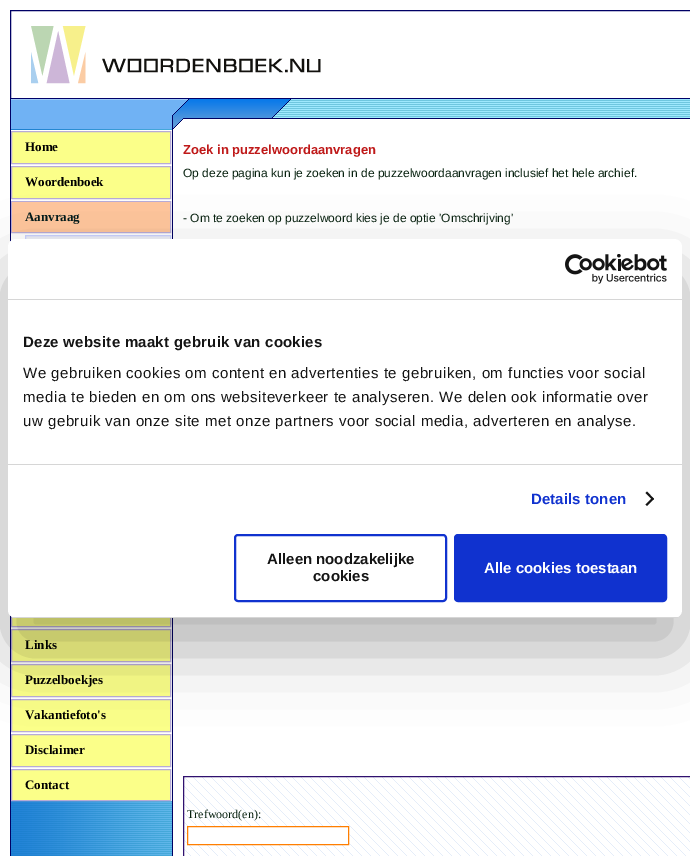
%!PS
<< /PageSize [690 856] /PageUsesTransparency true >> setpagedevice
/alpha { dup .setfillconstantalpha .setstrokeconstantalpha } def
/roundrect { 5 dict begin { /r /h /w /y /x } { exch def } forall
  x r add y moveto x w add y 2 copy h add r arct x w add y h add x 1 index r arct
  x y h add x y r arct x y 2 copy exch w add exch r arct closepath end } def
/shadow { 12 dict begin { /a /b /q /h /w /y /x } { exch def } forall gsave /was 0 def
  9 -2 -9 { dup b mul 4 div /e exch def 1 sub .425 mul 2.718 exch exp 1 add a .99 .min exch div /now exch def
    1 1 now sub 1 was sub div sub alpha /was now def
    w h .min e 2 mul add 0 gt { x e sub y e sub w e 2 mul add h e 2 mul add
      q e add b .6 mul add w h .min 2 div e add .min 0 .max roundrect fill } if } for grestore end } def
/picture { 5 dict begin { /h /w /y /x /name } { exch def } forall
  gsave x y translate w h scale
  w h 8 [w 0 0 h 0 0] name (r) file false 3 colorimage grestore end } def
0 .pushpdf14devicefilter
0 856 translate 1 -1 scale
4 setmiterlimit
1 setgray
0 0 690 856 rectfill
0 0 0.396 setrgbcolor
10.5 10.5 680 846 rectstroke
0 0 0.412 setrgbcolor
11 98 679 1 rectfill
(img1.rgb) 31 26 290 58 picture
(img2.rgb) 11 99 679 30 picture
(img3.rgb) 11 129 162 727 picture
1 setgray
11 130 161 671 rectfill
0.984 1 0.537 setrgbcolor
newpath 11.5 131.5 moveto 170.5 131.5 lineto 170.5 163.5 lineto 11.5 163.5 lineto closepath gsave fill grestore
0.718 0.671 0.843 setrgbcolor
stroke
/LiberationSerif-Bold [13 0 0 -13 0 0] selectfont
0 setgray
25 151 moveto (Home) show
0.984 1 0.537 setrgbcolor
newpath 11.5 166.5 moveto 170.5 166.5 lineto 170.5 198.5 lineto 11.5 198.5 lineto closepath gsave fill grestore
0.718 0.671 0.843 setrgbcolor
stroke
0 setgray
25 186 moveto (Woordenboek) show
0.718 0.671 0.843 setrgbcolor
11.5 201.5 159 31 rectstroke
1 0.776 0.612 setrgbcolor
12 202 158 30 rectfill
0.012 0.106 0.106 setrgbcolor
25 221 moveto (Aanvraag) show
(img4.rgb) 26 236 144 3 picture
0.792 0.82 1 setrgbcolor
25.5 235.5 145 19 rectstroke
0.984 1 0.537 setrgbcolor
12 616 158 10 rectfill
0.718 0.671 0.843 setrgbcolor
11.5 595.5 159 31 rectstroke
0.984 1 0.537 setrgbcolor
newpath 11.5 629.5 moveto 170.5 629.5 lineto 170.5 661.5 lineto 11.5 661.5 lineto closepath gsave fill grestore
0.718 0.671 0.843 setrgbcolor
stroke
0 setgray
25 649 moveto (Links) show
0.984 1 0.537 setrgbcolor
newpath 11.5 664.5 moveto 170.5 664.5 lineto 170.5 696.5 lineto 11.5 696.5 lineto closepath gsave fill grestore
0.718 0.671 0.843 setrgbcolor
stroke
0 setgray
25 684 moveto (Puzzelboekjes) show
0.984 1 0.537 setrgbcolor
newpath 11.5 699.5 moveto 170.5 699.5 lineto 170.5 731.5 lineto 11.5 731.5 lineto closepath gsave fill grestore
0.718 0.671 0.843 setrgbcolor
stroke
0 setgray
25 719 moveto (Vakantiefoto's) show
0.984 1 0.537 setrgbcolor
newpath 11.5 734.5 moveto 170.5 734.5 lineto 170.5 766.5 lineto 11.5 766.5 lineto closepath gsave fill grestore
0.718 0.671 0.843 setrgbcolor
stroke
0 setgray
25 754 moveto (Disclaimer) show
0.984 1 0.537 setrgbcolor
newpath 11.5 769.5 moveto 170.5 769.5 lineto 170.5 800.5 lineto 11.5 800.5 lineto closepath gsave fill grestore
0.718 0.671 0.843 setrgbcolor
stroke
0 setgray
25 789 moveto (Contact) show
/LiberationSans-Bold [13 0 0 -13 0 0] selectfont
0.749 0.098 0.098 setrgbcolor
183 154 moveto (Zoek in puzzelwoordaanvragen) show
/LiberationSans-Regular [12 0 0 -12 0 0] selectfont
0.027 0.129 0.059 setrgbcolor
183 177 moveto (Op deze pagina kun je zoeken in de puzzelwoordaanvragen inclusief het hele archief.) show
183 222 moveto (- Om te zoeken op puzzelwoord kies je de optie 'Omschrijving') show
(img5.rgb) 184 777 506 79 picture
0.188 0.067 0.435 setrgbcolor
183.5 776.5 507 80 rectstroke
/LiberationSerif-Regular [12 0 0 -12 0 0] selectfont
0.027 0.129 0.059 setrgbcolor
187 818 moveto (Trefwoord\(en\):) show
1 setgray
newpath 187.5 826.5 moveto 348.5 826.5 lineto 348.5 844.5 lineto 187.5 844.5 lineto closepath gsave fill grestore
1 0.494 0 setrgbcolor
stroke
0 setgray
8 271 674 379 8 34 0.3 shadow
1 setgray
8 239 674 379 8 roundrect fill
0.839 setgray
8 299 674 1 rectfill
(img6.rgb) 565 254 102 30 picture
8 464 674 1 rectfill
/LiberationSans-Bold [15 0 0 -15 0 0] selectfont
0.078 setgray
23 347 moveto 0.25 0 (Deze website maakt gebruik van cookies) ashow
/LiberationSans-Regular [15 0 0 -15 0 0] selectfont
23 378 moveto 0.5 0 (We gebruiken cookies om content en advertenties te gebruiken, om functies voor social) ashow
23 402 moveto 0.5 0 (media te bieden en om ons websiteverkeer te analyseren. We delen ook informatie over) ashow
23 426 moveto 0.5 0 (uw gebruik van onze site met onze partners voor social media, adverteren en analyse.) ashow
/LiberationSans-Bold [15 0 0 -15 0 0] selectfont
0.063 0.196 0.812 setrgbcolor
531 504 moveto 0.1 0 (Details tonen) ashow
0.078 setgray
newpath 647 491.5 moveto 654 499 lineto 652.5 500 lineto 645.5 493 lineto closepath fill
newpath 652.5 497.5 moveto 654 499 lineto 647 506 lineto 645.5 504.5 lineto closepath fill
gsave
8 239 674 379 8 roundrect clip newpath
0.839 setgray
8 617 674 1 rectfill
grestore
0.063 0.196 0.812 setrgbcolor
2 setlinewidth
235 535 211 66 3 roundrect stroke
0.078 setgray
267 564 moveto (Alleen noodzakelijke) show
313 581 moveto (cookies) show
0.063 0.196 0.812 setrgbcolor
455 535 211 66 3 roundrect gsave fill grestore
stroke
1 setgray
484 573 moveto (Alle cookies toestaan) show
.poppdf14devicefilter showpage
